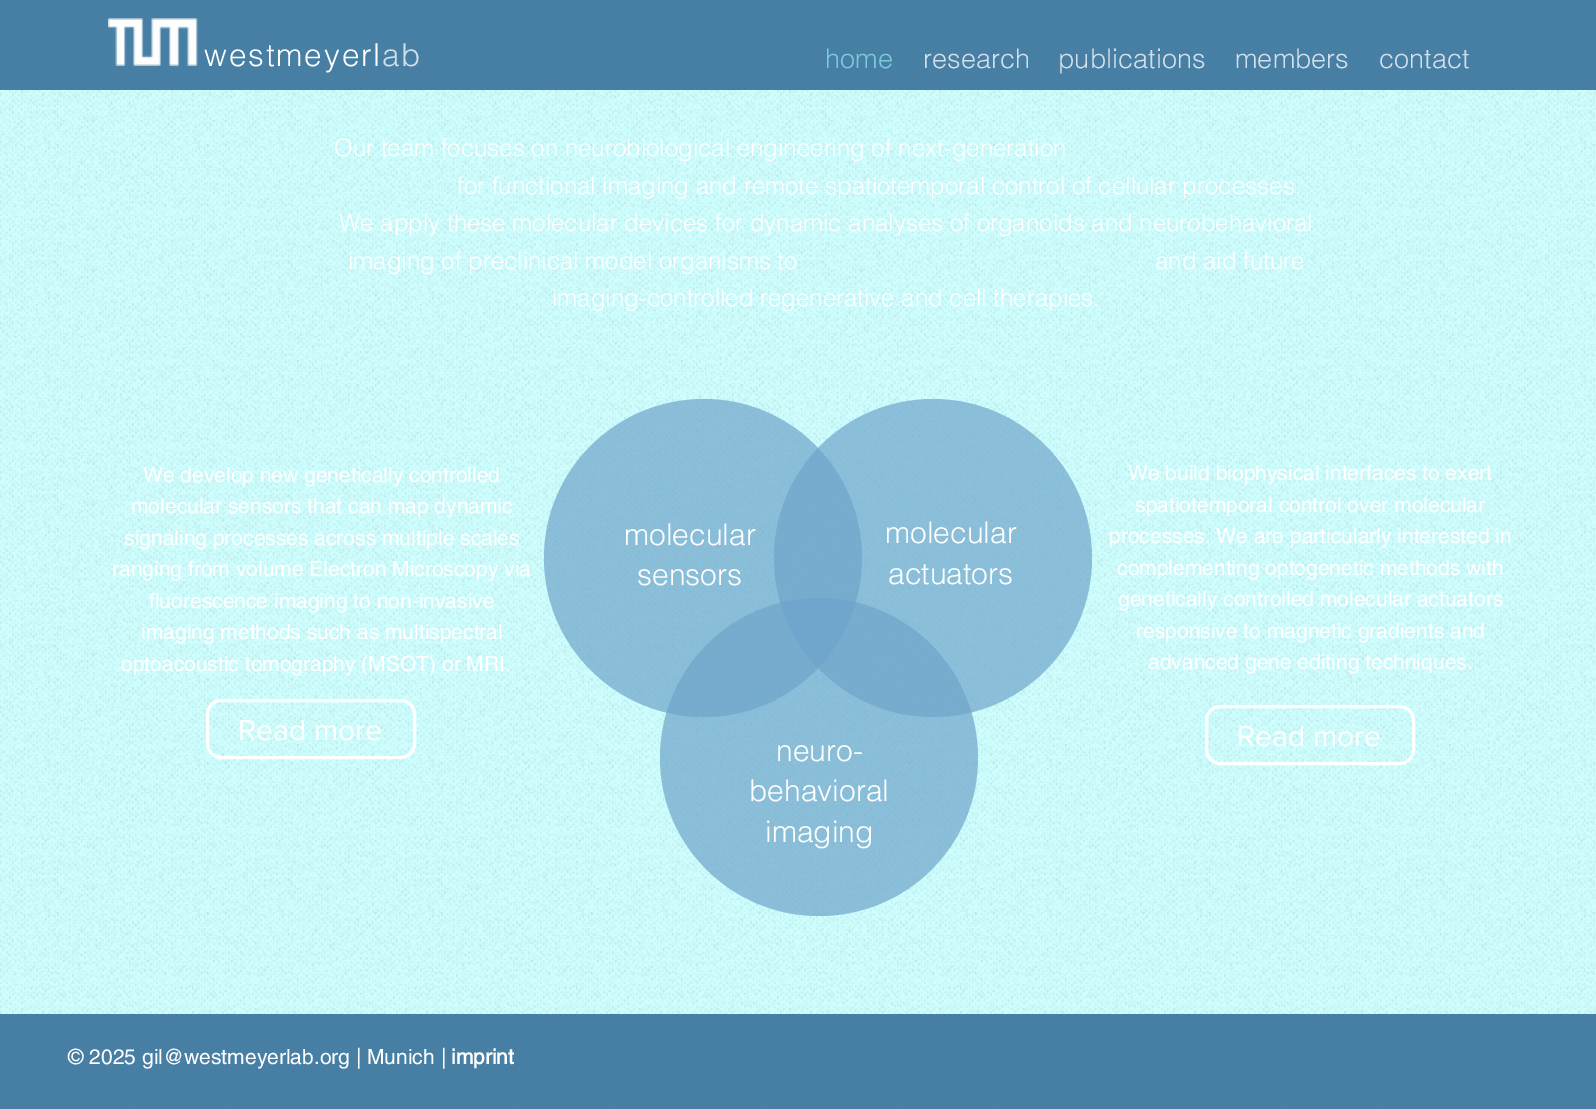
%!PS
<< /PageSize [1596 1109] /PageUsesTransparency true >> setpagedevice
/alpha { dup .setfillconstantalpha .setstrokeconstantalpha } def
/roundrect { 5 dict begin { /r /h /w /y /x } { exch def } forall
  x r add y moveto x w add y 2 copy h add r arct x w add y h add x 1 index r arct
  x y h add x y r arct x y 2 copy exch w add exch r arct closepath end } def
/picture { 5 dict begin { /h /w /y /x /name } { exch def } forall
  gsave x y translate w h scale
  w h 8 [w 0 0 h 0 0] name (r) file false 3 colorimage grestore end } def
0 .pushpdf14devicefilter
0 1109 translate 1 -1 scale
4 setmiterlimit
0.812 1 1 setrgbcolor
0 0 1596 1109 rectfill
(img1.rgb) 0 0 1596 1109 picture
0.9 alpha
0.224 0.447 0.608 setrgbcolor
0 0 1596 90 rectfill
1 alpha
(img2.rgb) 108 18 90 48 picture
/helvetica-Light [31.5 0 0 -31.5 0 0] selectfont
1 setgray
204 66 moveto 1.9 0 (westmeyerl) ashow
0.82 0.878 0.922 setrgbcolor
382 66 moveto 1.9 0 (ab) ashow
/helvetica-Light [27 0 0 -27 0 0] selectfont
0.49 0.792 0.855 setrgbcolor
825 68 moveto (home) show
0.82 0.878 0.922 setrgbcolor
923 68 moveto (research) show
1058 68 moveto (publications) show
1235 68 moveto (members) show
1379 68 moveto (contact) show
/helvetica-Light [24 0 0 -24 0 0] selectfont
1 setgray
334 156 moveto (Our team focuses on neurobiological engineering of next-generation) show
457 194 moveto (for functional imaging and remote spatiotemporal control of cellular processes.) show
339 231 moveto (We apply these molecular devices for dynamic analyses of organoids and neurobehavioral) show
348 269 moveto (imaging of preclinical model organisms to) show
1155 269 moveto (and aid future) show
552 306 moveto (imaging-controlled regenerative and cell therapies.) show
/helvetica-Regular [21 0 0 -21 0 0] selectfont
143 482 moveto (We develop new genetically controlled) show
131 513 moveto (molecular sensors that can map dynamic) show
124 545 moveto (signaling processes across multiple scales) show
112 576 moveto (ranging from volume Electron Microscopy via) show
149 608 moveto (fluorescence imaging to non-invasive) show
141 639 moveto (imaging methods such as multispectral) show
121 671 moveto (optoacoustic tomography \(MSOT\) or MRI.) show
3 setlinewidth
207.5 700.5 207 57 13.5 roundrect stroke
/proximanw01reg-Regular [30 0 0 -30 0 0] selectfont
238 740 moveto (Read more) show
0.7 alpha
0.431 0.643 0.792 setrgbcolor
newpath 978 758 moveto 978 845 907 916 819 916 curveto 731 916 660 845 660 758 curveto 660 670 731 598 819 598 curveto 907 598 978 670 978 758 curveto closepath fill
newpath 862 558 moveto 862 646 791 717 704 717 curveto 616 717 544 646 544 558 curveto 544 470 616 399 704 399 curveto 791 399 862 470 862 558 curveto closepath fill
0.69 alpha
newpath 1092 558 moveto 1092 646 1021 717 933 717 curveto 845 717 774 646 774 558 curveto 774 470 845 399 933 399 curveto 1021 399 1092 470 1092 558 curveto closepath fill
/helvetica-Light [30 0 0 -30 0 0] selectfont
1 alpha
1 setgray
624 545 moveto (molecular) show
637 585 moveto (sensors) show
885 543 moveto (molecular) show
888 584 moveto (actuators) show
776 761 moveto (neuro-) show
749 801 moveto (behavioral) show
765 842 moveto (imaging) show
/helvetica-Regular [21 0 0 -21 0 0] selectfont
1128 480 moveto (We build biophysical interfaces to exert) show
1135 512 moveto (spatiotemporal control over molecular) show
1109 543 moveto (processes. We are particularly interested in) show
1117 575 moveto (complementing optogenetic methods with) show
1118 606 moveto (genetically controlled molecular actuators) show
1136 638 moveto (responsive to magnetic gradients and) show
1148 669 moveto (advanced gene editing techniques.) show
1206.5 706.5 207 57 13.5 roundrect stroke
/proximanw01reg-Regular [30 0 0 -30 0 0] selectfont
1237 746 moveto (Read more) show
0.9 alpha
0.224 0.447 0.608 setrgbcolor
0 1014 1596 95 rectfill
/helvetica-Regular [21 0 0 -21 0 0] selectfont
1 alpha
1 setgray
68 1064 moveto (© 2025 gil@westmeyerlab.org | Munich |) show
/helvetica-Bold [21 0 0 -21 0 0] selectfont
451 1064 moveto (imprint) show
.poppdf14devicefilter showpage
